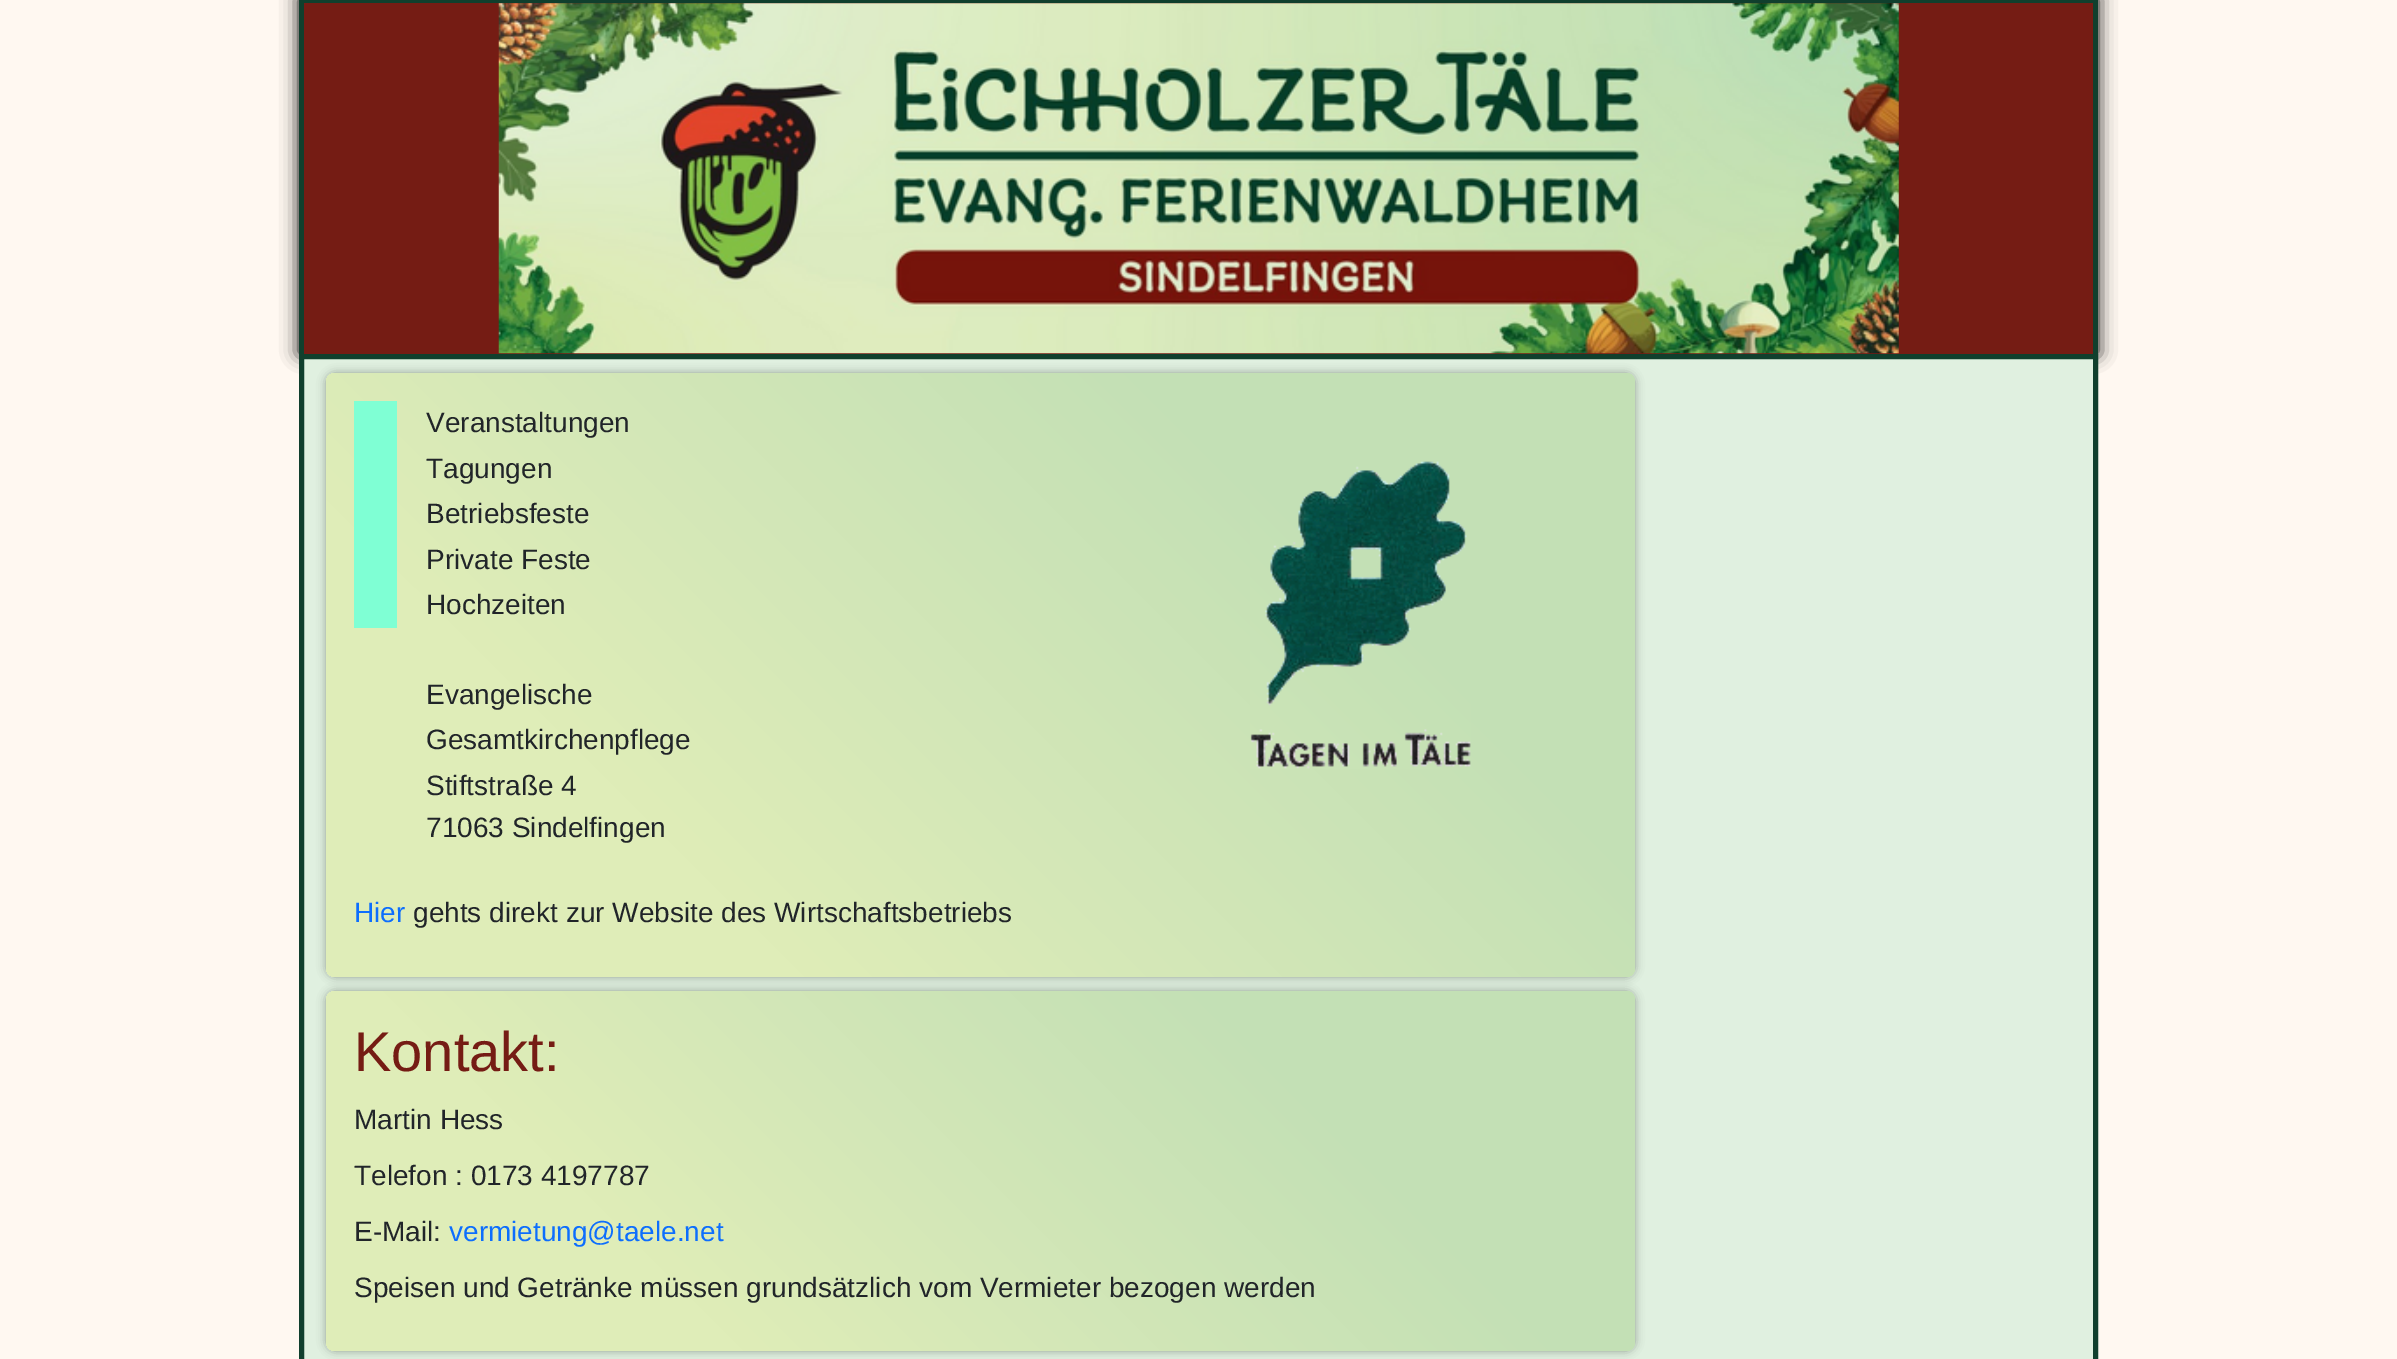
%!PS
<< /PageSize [2397 1359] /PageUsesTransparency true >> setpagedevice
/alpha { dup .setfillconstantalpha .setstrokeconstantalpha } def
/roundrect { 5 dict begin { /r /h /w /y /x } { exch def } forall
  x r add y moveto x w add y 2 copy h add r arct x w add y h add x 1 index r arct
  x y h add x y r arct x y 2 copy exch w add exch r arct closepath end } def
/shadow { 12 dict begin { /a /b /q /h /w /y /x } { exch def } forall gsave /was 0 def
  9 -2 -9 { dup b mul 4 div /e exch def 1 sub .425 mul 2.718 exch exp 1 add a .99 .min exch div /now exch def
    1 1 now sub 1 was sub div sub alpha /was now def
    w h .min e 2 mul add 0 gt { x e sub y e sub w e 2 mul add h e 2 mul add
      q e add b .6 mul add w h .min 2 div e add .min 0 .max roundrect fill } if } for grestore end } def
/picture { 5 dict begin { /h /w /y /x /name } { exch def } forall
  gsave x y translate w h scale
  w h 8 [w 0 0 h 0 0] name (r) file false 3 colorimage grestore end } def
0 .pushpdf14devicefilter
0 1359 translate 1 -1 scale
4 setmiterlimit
1 0.973 0.945 setrgbcolor
0 0 2397 1359 rectfill
0 setgray
299 -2 1799 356 0 9 1 shadow
0.459 0.11 0.078 setrgbcolor
304 3 1789 351 rectfill
0.063 0.247 0.176 setrgbcolor
299 0 1799 3 rectfill
2093 0 5 354 rectfill
299 0 5 354 rectfill
(img1.rgb) 498 3 1401 351 picture
0.878 0.941 0.878 setrgbcolor
newpath 301.5 356.5 moveto 2095.5 356.5 lineto 2095.5 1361.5 lineto 301.5 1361.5 lineto closepath gsave fill grestore
0.063 0.247 0.176 setrgbcolor
5 setlinewidth
stroke
0 setgray
326 373 1309 604 9 4.5 0.33 shadow
gsave 326 373 1309 604 9 roundrect clip newpath
<< /ShadingType 2 /ColorSpace /DeviceRGB /Coords [502 1153 1458 196] /Extend [true true] /Function << /FunctionType 3 /Domain [0 1] /Functions [<< /FunctionType 2 /Domain [0 1] /C0 [0.875 0.929 0.722] /C1 [0.875 0.929 0.722] /N 1 >> << /FunctionType 2 /Domain [0 1] /C0 [0.875 0.929 0.722] /C1 [0.765 0.878 0.71] /N 1 >> << /FunctionType 2 /Domain [0 1] /C0 [0.765 0.878 0.71] /C1 [0.765 0.878 0.71] /N 1 >>] /Bounds [0.25 0.75] /Encode [0 1 0 1 0 1] >> >> shfill grestore
0.498 1 0.831 setrgbcolor
354 401 43 227 rectfill
/LiberationSans-Regular [28 0 0 -28 0 0] selectfont
0.129 0.145 0.161 setrgbcolor
426 432 moveto (Veranstaltungen) show
(img2.rgb) 1250 461 221 308 picture
426 478 moveto (Tagungen) show
426 523 moveto (Betriebsfeste) show
426 569 moveto (Private Feste) show
426 614 moveto (Hochzeiten) show
426 704 moveto (Evangelische) show
426 749 moveto (Gesamtkirchenpflege) show
426 795 moveto (Stiftstraße 4) show
426 837 moveto (71063 Sindelfingen) show
0.051 0.431 0.992 setrgbcolor
354 922 moveto (Hier) show
0.129 0.145 0.161 setrgbcolor
413 922 moveto (gehts direkt zur Website des Wirtschaftsbetriebs) show
0 setgray
326 991 1309 360 9 4.5 0.33 shadow
gsave 326 991 1309 360 9 roundrect clip newpath
<< /ShadingType 2 /ColorSpace /DeviceRGB /Coords [563 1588 1397 753] /Extend [true true] /Function << /FunctionType 3 /Domain [0 1] /Functions [<< /FunctionType 2 /Domain [0 1] /C0 [0.875 0.929 0.722] /C1 [0.875 0.929 0.722] /N 1 >> << /FunctionType 2 /Domain [0 1] /C0 [0.875 0.929 0.722] /C1 [0.765 0.878 0.71] /N 1 >> << /FunctionType 2 /Domain [0 1] /C0 [0.765 0.878 0.71] /C1 [0.765 0.878 0.71] /N 1 >>] /Bounds [0.25 0.75] /Encode [0 1 0 1 0 1] >> >> shfill grestore
/LiberationSans-Regular [56 0 0 -56 0 0] selectfont
0.459 0.11 0.078 setrgbcolor
354 1071 moveto (Kontakt:) show
/LiberationSans-Regular [28 0 0 -28 0 0] selectfont
0.129 0.145 0.161 setrgbcolor
354 1129 moveto (Martin Hess) show
354 1185 moveto (Telefon : 0173 4197787) show
354 1241 moveto (E-Mail:) show
0.051 0.431 0.992 setrgbcolor
449 1241 moveto (vermietung@taele.net) show
0.129 0.145 0.161 setrgbcolor
354 1297 moveto (Speisen und Getränke müssen grundsätzlich vom Vermieter bezogen werden) show
.poppdf14devicefilter showpage
